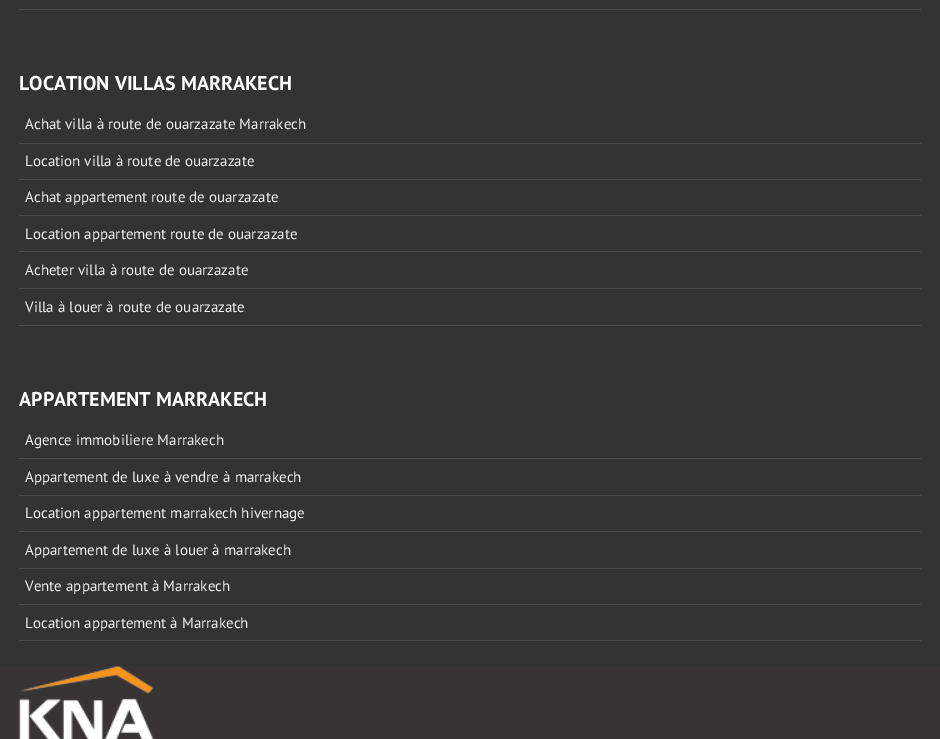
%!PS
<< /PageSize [940 739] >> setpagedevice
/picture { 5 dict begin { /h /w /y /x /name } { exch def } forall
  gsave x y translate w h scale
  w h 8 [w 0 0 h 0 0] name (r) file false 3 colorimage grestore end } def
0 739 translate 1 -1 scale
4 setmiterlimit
0.2 setgray
0 0 940 739 rectfill
0.302 setgray
19 9 902 1 rectfill
/PTSans-Bold [20 0 0 -20 0 0] selectfont
1 setgray
19 90 moveto (LOCATION VILLAS MARRAKECH) show
0.302 setgray
19 143 902 1 rectfill
/PTSans-Regular [15 0 0 -15 0 0] selectfont
0.941 setgray
25 129 moveto (Achat villa à route de ouarzazate Marrakech) show
0.302 setgray
19 179 902 1 rectfill
0.941 setgray
25 166 moveto (Location villa à route de ouarzazate) show
0.302 setgray
19 215 902 1 rectfill
0.941 setgray
25 202 moveto (Achat appartement route de ouarzazate) show
0.302 setgray
19 251 902 1 rectfill
0.941 setgray
25 239 moveto (Location appartement route de ouarzazate) show
0.302 setgray
19 288 902 1 rectfill
0.941 setgray
25 275 moveto (Acheter villa à route de ouarzazate) show
0.302 setgray
19 325 902 1 rectfill
0.941 setgray
25 312 moveto (Villa à louer à route de ouarzazate) show
/PTSans-Bold [20 0 0 -20 0 0] selectfont
1 setgray
19 406 moveto (APPARTEMENT MARRAKECH) show
0.302 setgray
19 458 902 1 rectfill
/PTSans-Regular [15 0 0 -15 0 0] selectfont
0.941 setgray
25 445 moveto (Agence immobiliere Marrakech) show
0.302 setgray
19 495 902 1 rectfill
0.941 setgray
25 482 moveto (Appartement de luxe à vendre à marrakech) show
0.302 setgray
19 531 902 1 rectfill
0.941 setgray
25 518 moveto (Location appartement marrakech hivernage) show
0.302 setgray
19 568 902 1 rectfill
0.941 setgray
25 555 moveto (Appartement de luxe à louer à marrakech) show
0.302 setgray
19 604 902 1 rectfill
0.941 setgray
25 591 moveto (Vente appartement à Marrakech) show
0.302 setgray
19 640 902 1 rectfill
0.941 setgray
25 628 moveto (Location appartement à Marrakech) show
0.22 0.204 0.204 setrgbcolor
0 666 940 73 rectfill
(img1.rgb) 18 666 136 73 picture
showpage
